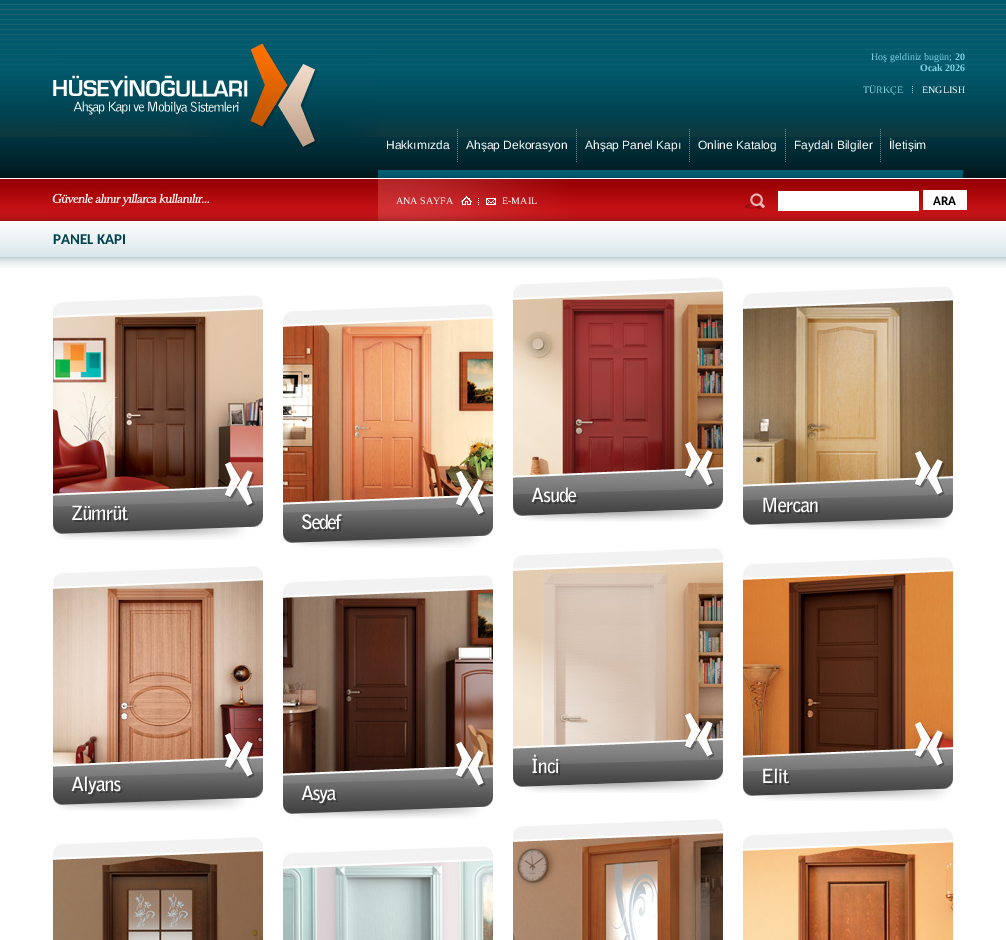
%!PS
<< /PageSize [1006 940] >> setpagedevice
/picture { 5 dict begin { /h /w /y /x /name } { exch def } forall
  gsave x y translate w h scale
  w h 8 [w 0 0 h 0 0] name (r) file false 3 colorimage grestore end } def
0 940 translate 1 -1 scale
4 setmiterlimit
1 setgray
0 0 1006 940 rectfill
(img1.rgb) 0 0 1006 268 picture
(img2.rgb) 53 40 325 112 picture
/LiberationSerif-Regular [10 0 0 -10 0 0] selectfont
0.498 0.82 0.89 setrgbcolor
871 60 moveto (Hoş geldiniz bugün;) show
/LiberationSerif-Bold [10 0 0 -10 0 0] selectfont
955 60 moveto (20) show
920 71 moveto (Ocak 2026) show
/LiberationSerif-Regular [10 0 0 -10 0 0] selectfont
863 93 moveto (TÜRKÇE) show
(img3.rgb) 912 86 1 7 picture
1 setgray
922 93 moveto (ENGLISH) show
(img4.rgb) 457 129 1 33 picture
/LiberationSans-Regular [12 0 0 -12 0 0] selectfont
386 149 moveto (Hakkımızda) show
(img4.rgb) 576 129 1 33 picture
466 149 moveto (Ahşap Dekorasyon) show
(img4.rgb) 689 129 1 33 picture
585 149 moveto (Ahşap Panel Kapı) show
(img4.rgb) 785 129 1 33 picture
698 149 moveto (Online Katalog) show
(img4.rgb) 880 129 1 33 picture
794 149 moveto (Faydalı Bilgiler) show
889 149 moveto (İletişim) show
(img5.rgb) 378 170 591 8 picture
(img6.rgb) 48 179 719 42 picture
/LiberationSerif-Regular [10 0 0 -10 0 0] selectfont
396 204 moveto (ANA SAYFA) show
(img7.rgb) 461 196 35 9 picture
502 204 moveto (E-MAIL) show
778 191 141 20 rectfill
923 190 44 20 rectfill
/Carlito-Bold [13 0 0 -13 0 0] selectfont
0 setgray
933 205 moveto (ARA) show
/Carlito-Bold [15 0 0 -15 0 0] selectfont
0.008 0.259 0.31 setrgbcolor
53 244 moveto (PANEL KAPI) show
(img8.rgb) 53 295 210 245 picture
(img9.rgb) 283 304 210 244 picture
(img10.rgb) 513 277 210 245 picture
(img11.rgb) 743 286 210 244 picture
(img12.rgb) 53 566 210 245 picture
(img13.rgb) 283 575 210 244 picture
(img14.rgb) 513 548 210 245 picture
(img15.rgb) 743 557 210 244 picture
(img16.rgb) 53 837 210 103 picture
(img17.rgb) 283 846 210 94 picture
(img18.rgb) 513 819 210 121 picture
(img19.rgb) 743 828 210 112 picture
showpage
